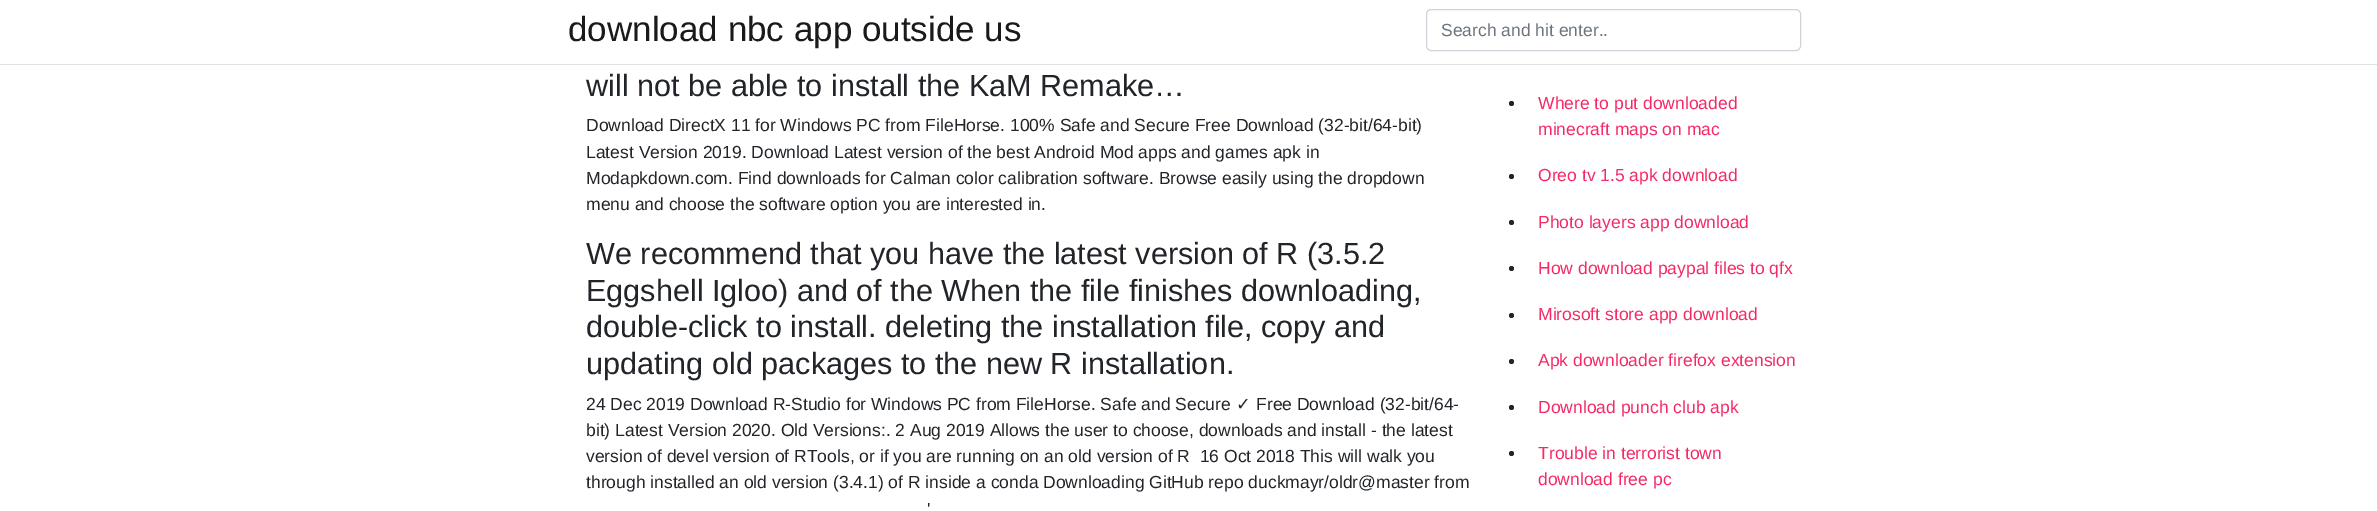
%!PS
<< /PageSize [2377 511] >> setpagedevice
/roundrect { 5 dict begin { /r /h /w /y /x } { exch def } forall
  x r add y moveto x w add y 2 copy h add r arct x w add y h add x 1 index r arct
  x y h add x y r arct x y 2 copy exch w add exch r arct closepath end } def
0 511 translate 1 -1 scale
4 setmiterlimit
1 setgray
0 0 2377 511 rectfill
0.882 0.886 0.89 setrgbcolor
0 64 2377 1 rectfill
/LiberationSans-Regular [35 0 0 -35 0 0] selectfont
0.102 setgray
568 41 moveto (download nbc app outside us) show
0.808 0.831 0.855 setrgbcolor
1426.5 9.5 374 41 4.5 roundrect stroke
/LiberationSans-Regular [17.5 0 0 -17.5 0 0] selectfont
0.424 0.459 0.49 setrgbcolor
1441 36 moveto (Search and hit enter..) show
/LiberationSans-Regular [30.6 0 0 -30.6 0 0] selectfont
0.129 0.145 0.161 setrgbcolor
586 96 moveto (will not be able to install the KaM Remake…) show
/LiberationSans-Regular [17.5 0 0 -17.5 0 0] selectfont
586 131 moveto (Download DirectX 11 for Windows PC from FileHorse. 100% Safe and Secure Free Download \(32-bit/64-bit\)) show
586 158 moveto (Latest Version 2019. Download Latest version of the best Android Mod apps and games apk in) show
586 184 moveto (Modapkdown.com. Find downloads for Calman color calibration software. Browse easily using the dropdown) show
586 210 moveto (menu and choose the software option you are interested in.) show
/LiberationSans-Regular [30.6 0 0 -30.6 0 0] selectfont
586 264 moveto (We recommend that you have the latest version of R \(3.5.2) show
586 301 moveto (Eggshell Igloo\) and of the When the file finishes downloading,) show
586 337 moveto (double-click to install. deleting the installation file, copy and) show
586 374 moveto (updating old packages to the new R installation.) show
/LiberationSans-Regular [17.5 0 0 -17.5 0 0] selectfont
586 410 moveto (24 Dec 2019 Download R-Studio for Windows PC from FileHorse. Safe and Secure) show
/DejaVuSans-Regular [17.5 0 0 -17.5 0 0] selectfont
1236 410 moveto (✓) show
/LiberationSans-Regular [17.5 0 0 -17.5 0 0] selectfont
1256 410 moveto (Free Download \(32-bit/64-) show
586 436 moveto (bit\) Latest Version 2020. Old Versions:. 2 Aug 2019 Allows the user to choose, downloads and install - the latest) show
586 462 moveto (version of devel version of RTools, or if you are running on an old version of R  16 Oct 2018 This will walk you) show
586 488 moveto (through installed an old version \(3.4.1\) of R inside a conda Downloading GitHub repo duckmayr/oldr@master from) show
927 515 moveto (') show
newpath 1511.5 103.5 2.5 0 360 arc closepath fill
0.957 0.161 0.4 setrgbcolor
1538 109 moveto (Where to put downloaded) show
1538 135 moveto (minecraft maps on mac) show
0.129 0.145 0.161 setrgbcolor
newpath 1511.5 176.5 2.5 0 360 arc closepath fill
0.957 0.161 0.4 setrgbcolor
1538 181 moveto (Oreo tv 1.5 apk download) show
0.129 0.145 0.161 setrgbcolor
newpath 1511.5 222.5 2.5 0 360 arc closepath fill
0.957 0.161 0.4 setrgbcolor
1538 228 moveto (Photo layers app download) show
0.129 0.145 0.161 setrgbcolor
newpath 1511.5 268.5 2.5 0 360 arc closepath fill
0.957 0.161 0.4 setrgbcolor
1538 274 moveto (How download paypal files to qfx) show
0.129 0.145 0.161 setrgbcolor
newpath 1511.5 315.5 2.5 0 360 arc closepath fill
0.957 0.161 0.4 setrgbcolor
1538 320 moveto (Mirosoft store app download) show
0.129 0.145 0.161 setrgbcolor
newpath 1511.5 361.5 2.5 0 360 arc closepath fill
0.957 0.161 0.4 setrgbcolor
1538 366 moveto (Apk downloader firefox extension) show
0.129 0.145 0.161 setrgbcolor
newpath 1511.5 407.5 2.5 0 360 arc closepath fill
0.957 0.161 0.4 setrgbcolor
1538 413 moveto (Download punch club apk) show
0.129 0.145 0.161 setrgbcolor
newpath 1511.5 453.5 2.5 0 360 arc closepath fill
0.957 0.161 0.4 setrgbcolor
1538 459 moveto (Trouble in terrorist town) show
1538 485 moveto (download free pc) show
showpage
